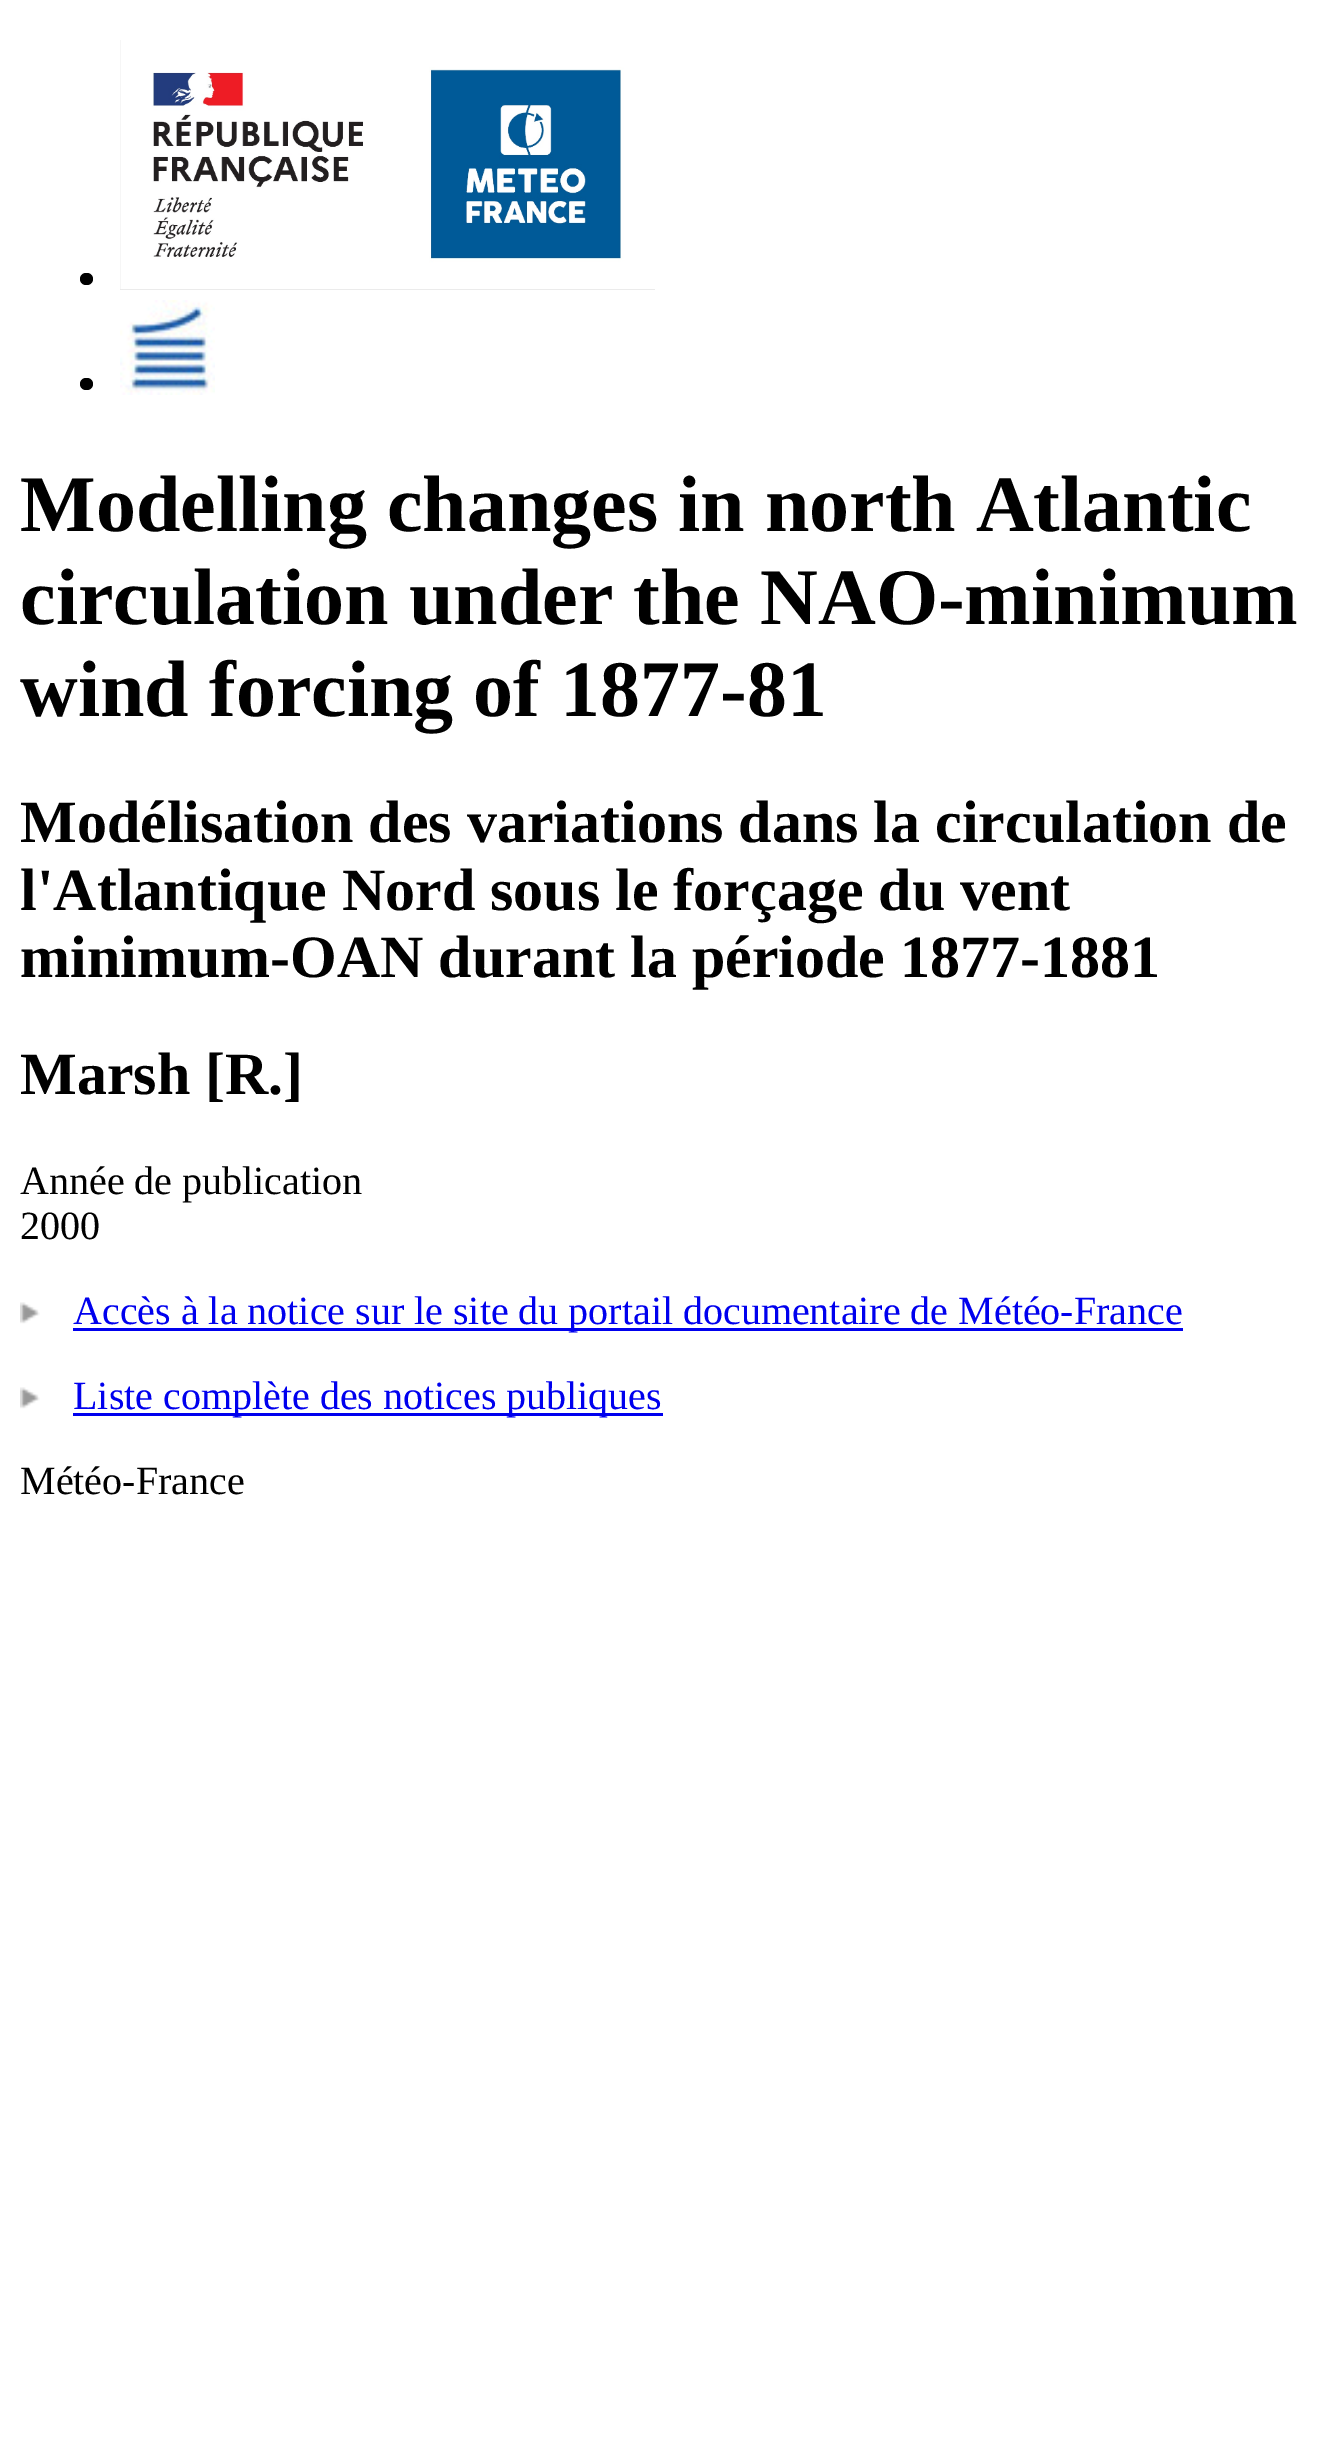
%!PS
<< /PageSize [1330 2463] >> setpagedevice
/roundrect { 5 dict begin { /r /h /w /y /x } { exch def } forall
  x r add y moveto x w add y 2 copy h add r arct x w add y h add x 1 index r arct
  x y h add x y r arct x y 2 copy exch w add exch r arct closepath end } def
/picture { 5 dict begin { /h /w /y /x /name } { exch def } forall
  gsave x y translate w h scale
  w h 8 [w 0 0 h 0 0] name (r) file false 3 colorimage grestore end } def
0 2463 translate 1 -1 scale
4 setmiterlimit
1 setgray
0 0 1330 2463 rectfill
0 setgray
80 273 13 12 6 roundrect fill
(img1.rgb) 120 40 535 250 picture
80 378 13 12 6 roundrect fill
(img2.rgb) 120 300 95 95 picture
/LiberationSerif-Bold [80 0 0 -80 0 0] selectfont
20 531 moveto (Modelling changes in north Atlantic) show
20 624 moveto (circulation under the NAO-minimum) show
20 716 moveto (wind forcing of 1877-81) show
/LiberationSerif-Bold [60 0 0 -60 0 0] selectfont
20 842 moveto (Modélisation des variations dans la circulation de) show
20 910 moveto (l'Atlantique Nord sous le forçage du vent) show
20 977 moveto (minimum-OAN durant la période 1877-1881) show
20 1094 moveto (Marsh [R.]) show
/LiberationSerif-Regular [40 0 0 -40 0 0] selectfont
20 1194 moveto (Année de publication) show
20 1239 moveto (2000) show
(img3.rgb) 20 1302 20 22 picture
0 0 0.933 setrgbcolor
73 1328 1110 3 rectfill
73 1324 moveto (Accès à la notice sur le site du portail documentaire de Météo-France) show
(img3.rgb) 20 1387 20 22 picture
73 1413 590 3 rectfill
73 1409 moveto (Liste complète des notices publiques) show
0 setgray
20 1494 moveto (Météo-France) show
showpage
